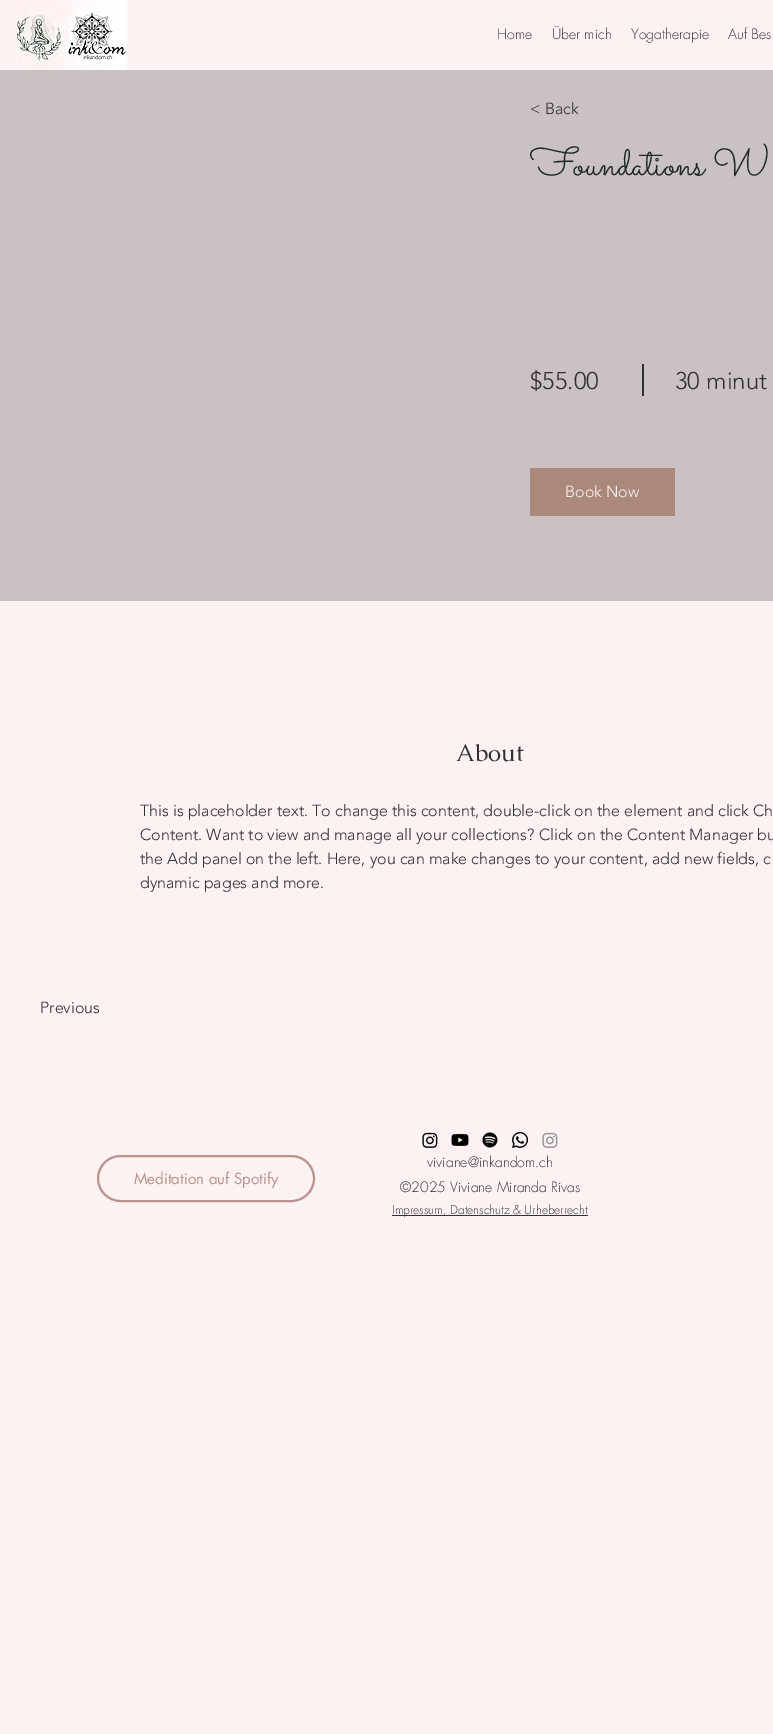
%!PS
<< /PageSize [773 1734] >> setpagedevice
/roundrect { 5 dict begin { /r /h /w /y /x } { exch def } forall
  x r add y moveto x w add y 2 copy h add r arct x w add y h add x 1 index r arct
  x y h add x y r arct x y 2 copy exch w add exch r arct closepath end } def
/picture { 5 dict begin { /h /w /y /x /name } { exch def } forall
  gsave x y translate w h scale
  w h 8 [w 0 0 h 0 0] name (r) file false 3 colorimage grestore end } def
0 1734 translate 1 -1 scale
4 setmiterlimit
0.992 0.949 0.949 setrgbcolor
0 0 773 1734 rectfill
(img1.rgb) 15 0 112 70 picture
/futura-Light [14 0 0 -14 0 0] selectfont
0.2 0.188 0.188 setrgbcolor
497 39 moveto (Home) show
552 39 moveto (Über mich) show
631 39 moveto (Yogatherapie) show
728 39 moveto (Auf Bes) show
0.792 0.761 0.761 setrgbcolor
0 70 773 531 rectfill
/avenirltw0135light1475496-Light [16 0 0 -16 0 0] selectfont
0.2 0.188 0.188 setrgbcolor
530 114 moveto (< Back) show
/Sacramento-Regular [40 0 0 -40 0 0] selectfont
0.122 0.157 0.145 setrgbcolor
530 175 moveto (Foundations W) show
/avenirltw0135light1475496-Light [24 0 0 -24 0 0] selectfont
0.2 0.188 0.188 setrgbcolor
530 389 moveto ($55.00) show
642 364 2 32 rectfill
675 389 moveto (30 minut) show
0.667 0.537 0.478 setrgbcolor
530 468 145 48 rectfill
/avenirltw0135light1475496-Light [16 0 0 -16 0 0] selectfont
0.992 0.949 0.949 setrgbcolor
565 497 moveto (Book Now) show
/Caudex-Regular [24 0 0 -24 0 0] selectfont
0.2 0.188 0.188 setrgbcolor
456 761 moveto (About) show
/avenirltw0135light1475496-Light [16 0 0 -16 0 0] selectfont
140 816 moveto (This is placeholder text. To change this content, double-click on the element and click Ch) show
140 840 moveto (Content. Want to view and manage all your collections? Click on the Content Manager bu) show
140 864 moveto (the Add panel on the left. Here, you can make changes to your content, add new fields, c) show
140 888 moveto (dynamic pages and more.) show
40 1013 moveto (Previous) show
(img2.rgb) 422 1132 16 16 picture
(img3.rgb) 451 1133 18 13 picture
(img4.rgb) 482 1132 16 16 picture
(img5.rgb) 512 1131 17 17 picture
(img6.rgb) 542 1132 16 16 picture
0.725 0.576 0.569 setrgbcolor
2 setlinewidth
98 1156 216 45 22.5 roundrect stroke
/futura-Regular [15 0 0 -15 0 0] selectfont
134 1184 moveto (Meditation auf Spotify) show
/futura-Light [14 0 0 -14 0 0] selectfont
0.2 0.188 0.188 setrgbcolor
427 1167 moveto (viviane@inkandom.ch) show
400 1192 moveto (©2025 Viviane Miranda Rivas) show
392 1215 196 1 rectfill
/futura-Light [12 0 0 -12 0 0] selectfont
392 1214 moveto (Impressum, Datenschutz & Urheberrecht) show
showpage
